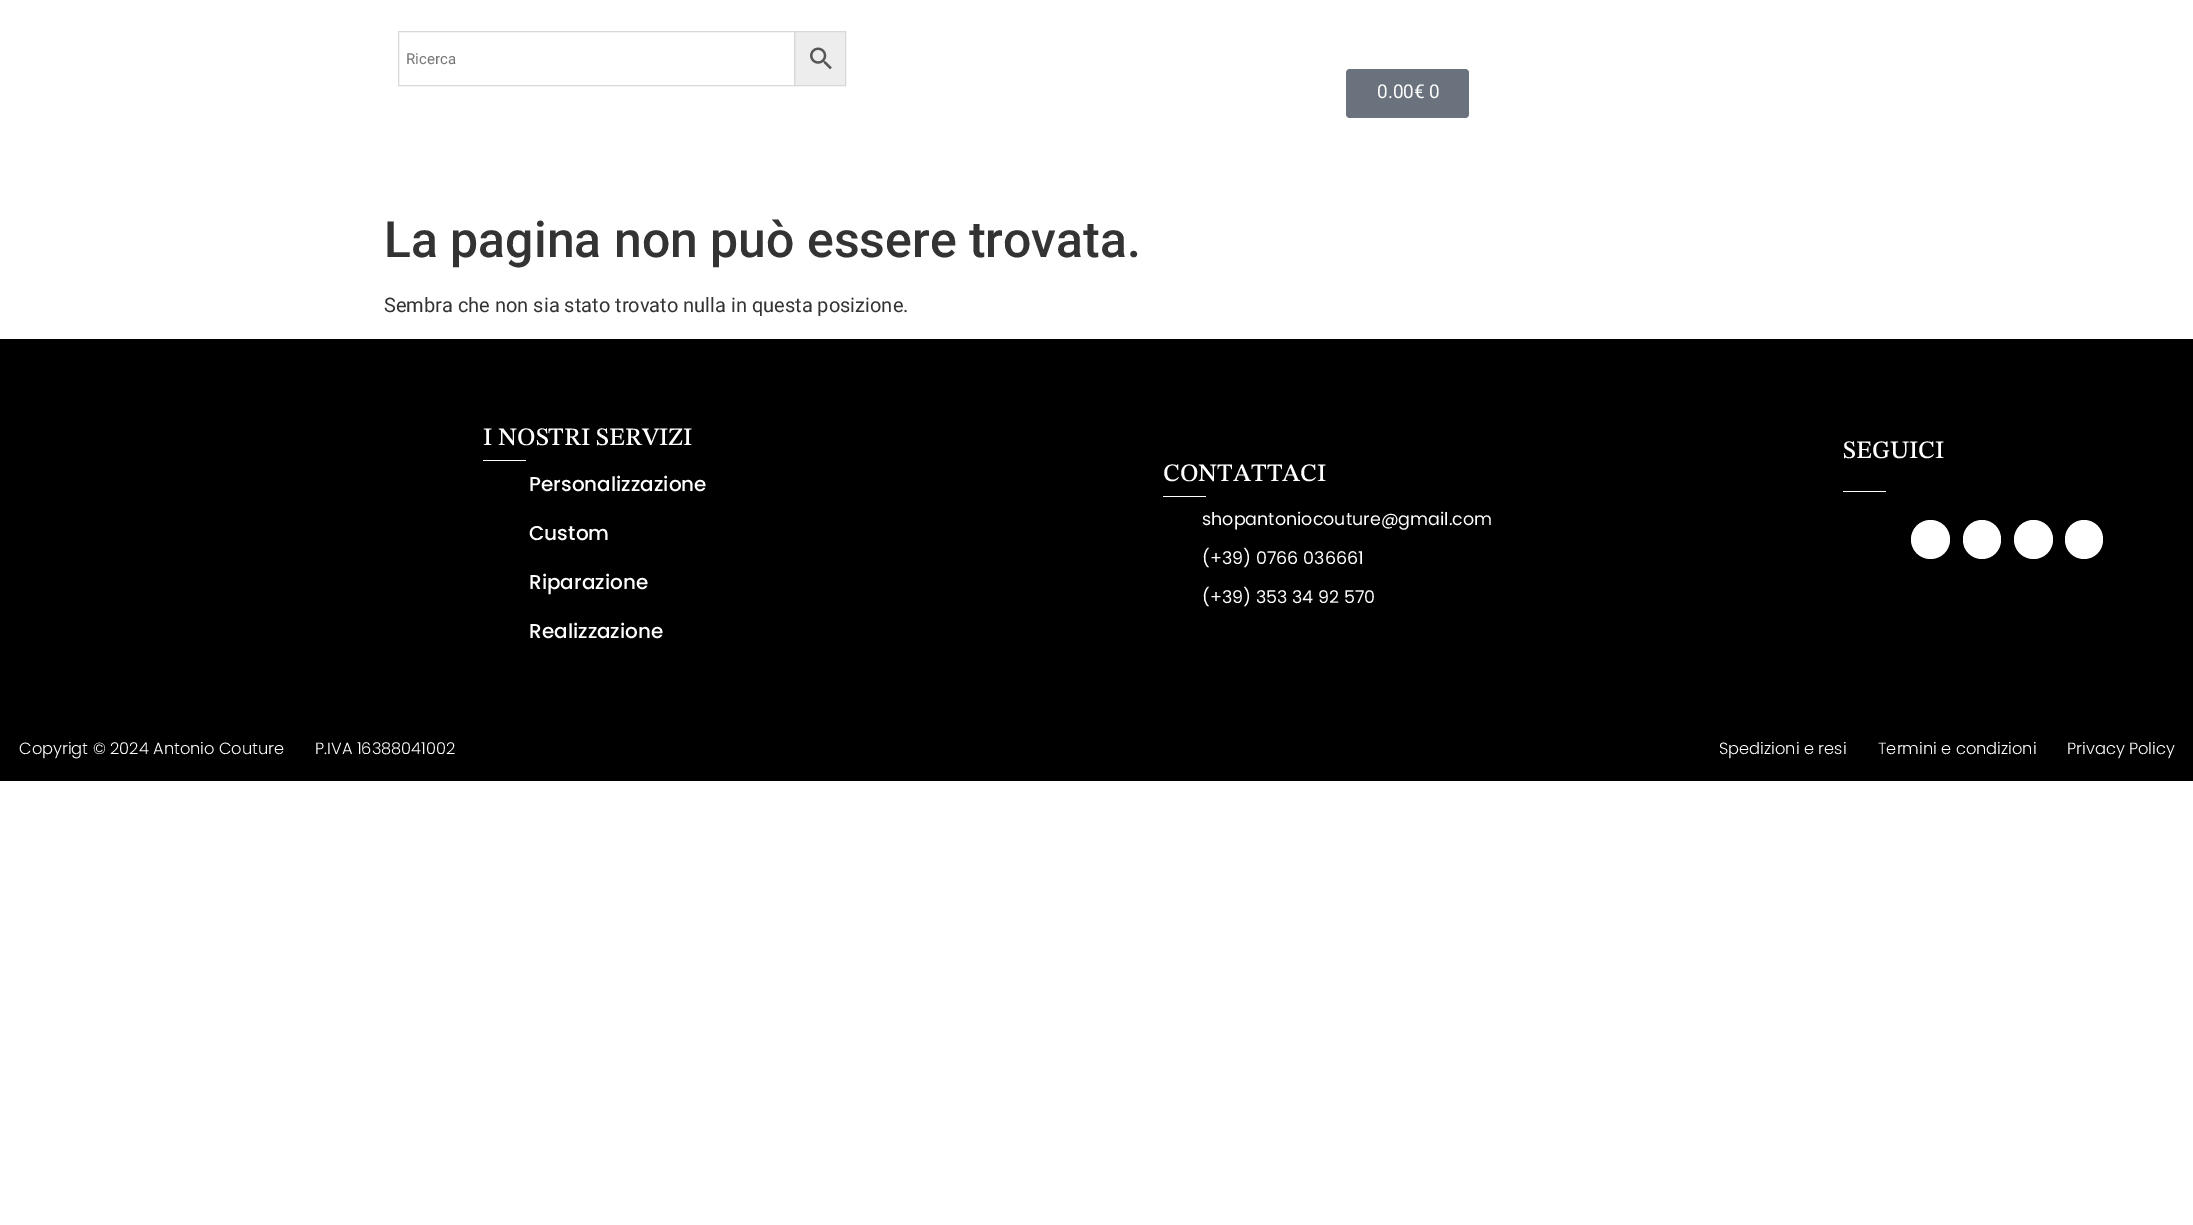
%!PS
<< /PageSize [2193 1225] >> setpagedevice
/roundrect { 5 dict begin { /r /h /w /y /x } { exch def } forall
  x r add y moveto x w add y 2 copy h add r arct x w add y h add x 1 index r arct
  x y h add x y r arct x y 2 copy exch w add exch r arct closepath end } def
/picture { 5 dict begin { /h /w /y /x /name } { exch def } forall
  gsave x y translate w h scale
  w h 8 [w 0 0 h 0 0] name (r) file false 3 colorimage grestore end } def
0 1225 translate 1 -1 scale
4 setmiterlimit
1 setgray
0 0 2193 1225 rectfill
0.929 setgray
newpath 794.5 31.5 moveto 845.5 31.5 lineto 845.5 85.5 lineto 794.5 85.5 lineto closepath gsave fill grestore
0.847 setgray
stroke
398.5 31.5 396 54 rectstroke
/Roboto-Regular [15 0 0 -15 0 0] selectfont
0.459 setgray
406 64 moveto (Ricerca) show
(img1.rgb) 810 47 22 23 picture
0.412 0.447 0.49 setrgbcolor
1346 69 123 49 4 roundrect fill
/Roboto-Regular [19 0 0 -19 0 0] selectfont
1 setgray
1377 98 moveto (0.00€ 0) show
/Roboto-Medium [50 0 0 -50 0 0] selectfont
0.2 setgray
384 257 moveto (La pagina non può essere trovata.) show
/Roboto-Regular [20 0 0 -20 0 0] selectfont
384 312 moveto (Sembra che non sia stato trovato nulla in questa posizione.) show
0 setgray
0 339 2193 442 rectfill
/STIXTwoText-Medium [25 0 0 -25 0 0] selectfont
1 setgray
483 445 moveto (I NOSTRI SERVIZI) show
483 460 43 1 rectfill
/Poppins-Medium [20 0 0 -20 0 0] selectfont
529 491 moveto (Personalizzazione) show
529 540 moveto (Custom) show
529 589 moveto (Riparazione) show
529 638 moveto (Realizzazione) show
/STIXTwoText-Medium [25 0 0 -25 0 0] selectfont
1843 458 moveto (SEGUICI) show
1843 491 43 1 rectfill
newpath 1930.5 539.5 19.5 0 360 arc closepath fill
1963 520 38 39 19 roundrect fill
newpath 2033.5 539.5 19.5 0 360 arc closepath fill
2065 520 38 39 19 roundrect fill
1163 481 moveto (CONTATTACI) show
1163 496 43 1 rectfill
/Poppins-Regular [17.5 0 0 -17.5 0 0] selectfont
1202 525 moveto (shopantoniocouture@gmail.com) show
1202 564 moveto (\(+39\) 0766 036661) show
1202 603 moveto (\(+39\) 353 34 92 570) show
/Poppins-Light [16.25 0 0 -16.25 0 0] selectfont
19 754 moveto (Copyrigt © 2024 Antonio Couture) show
315 754 moveto (P.IVA 16388041002) show
1719 754 moveto (Spedizioni e resi) show
1878 754 moveto (Termini e condizioni) show
2067 754 moveto (Privacy Policy) show
showpage
